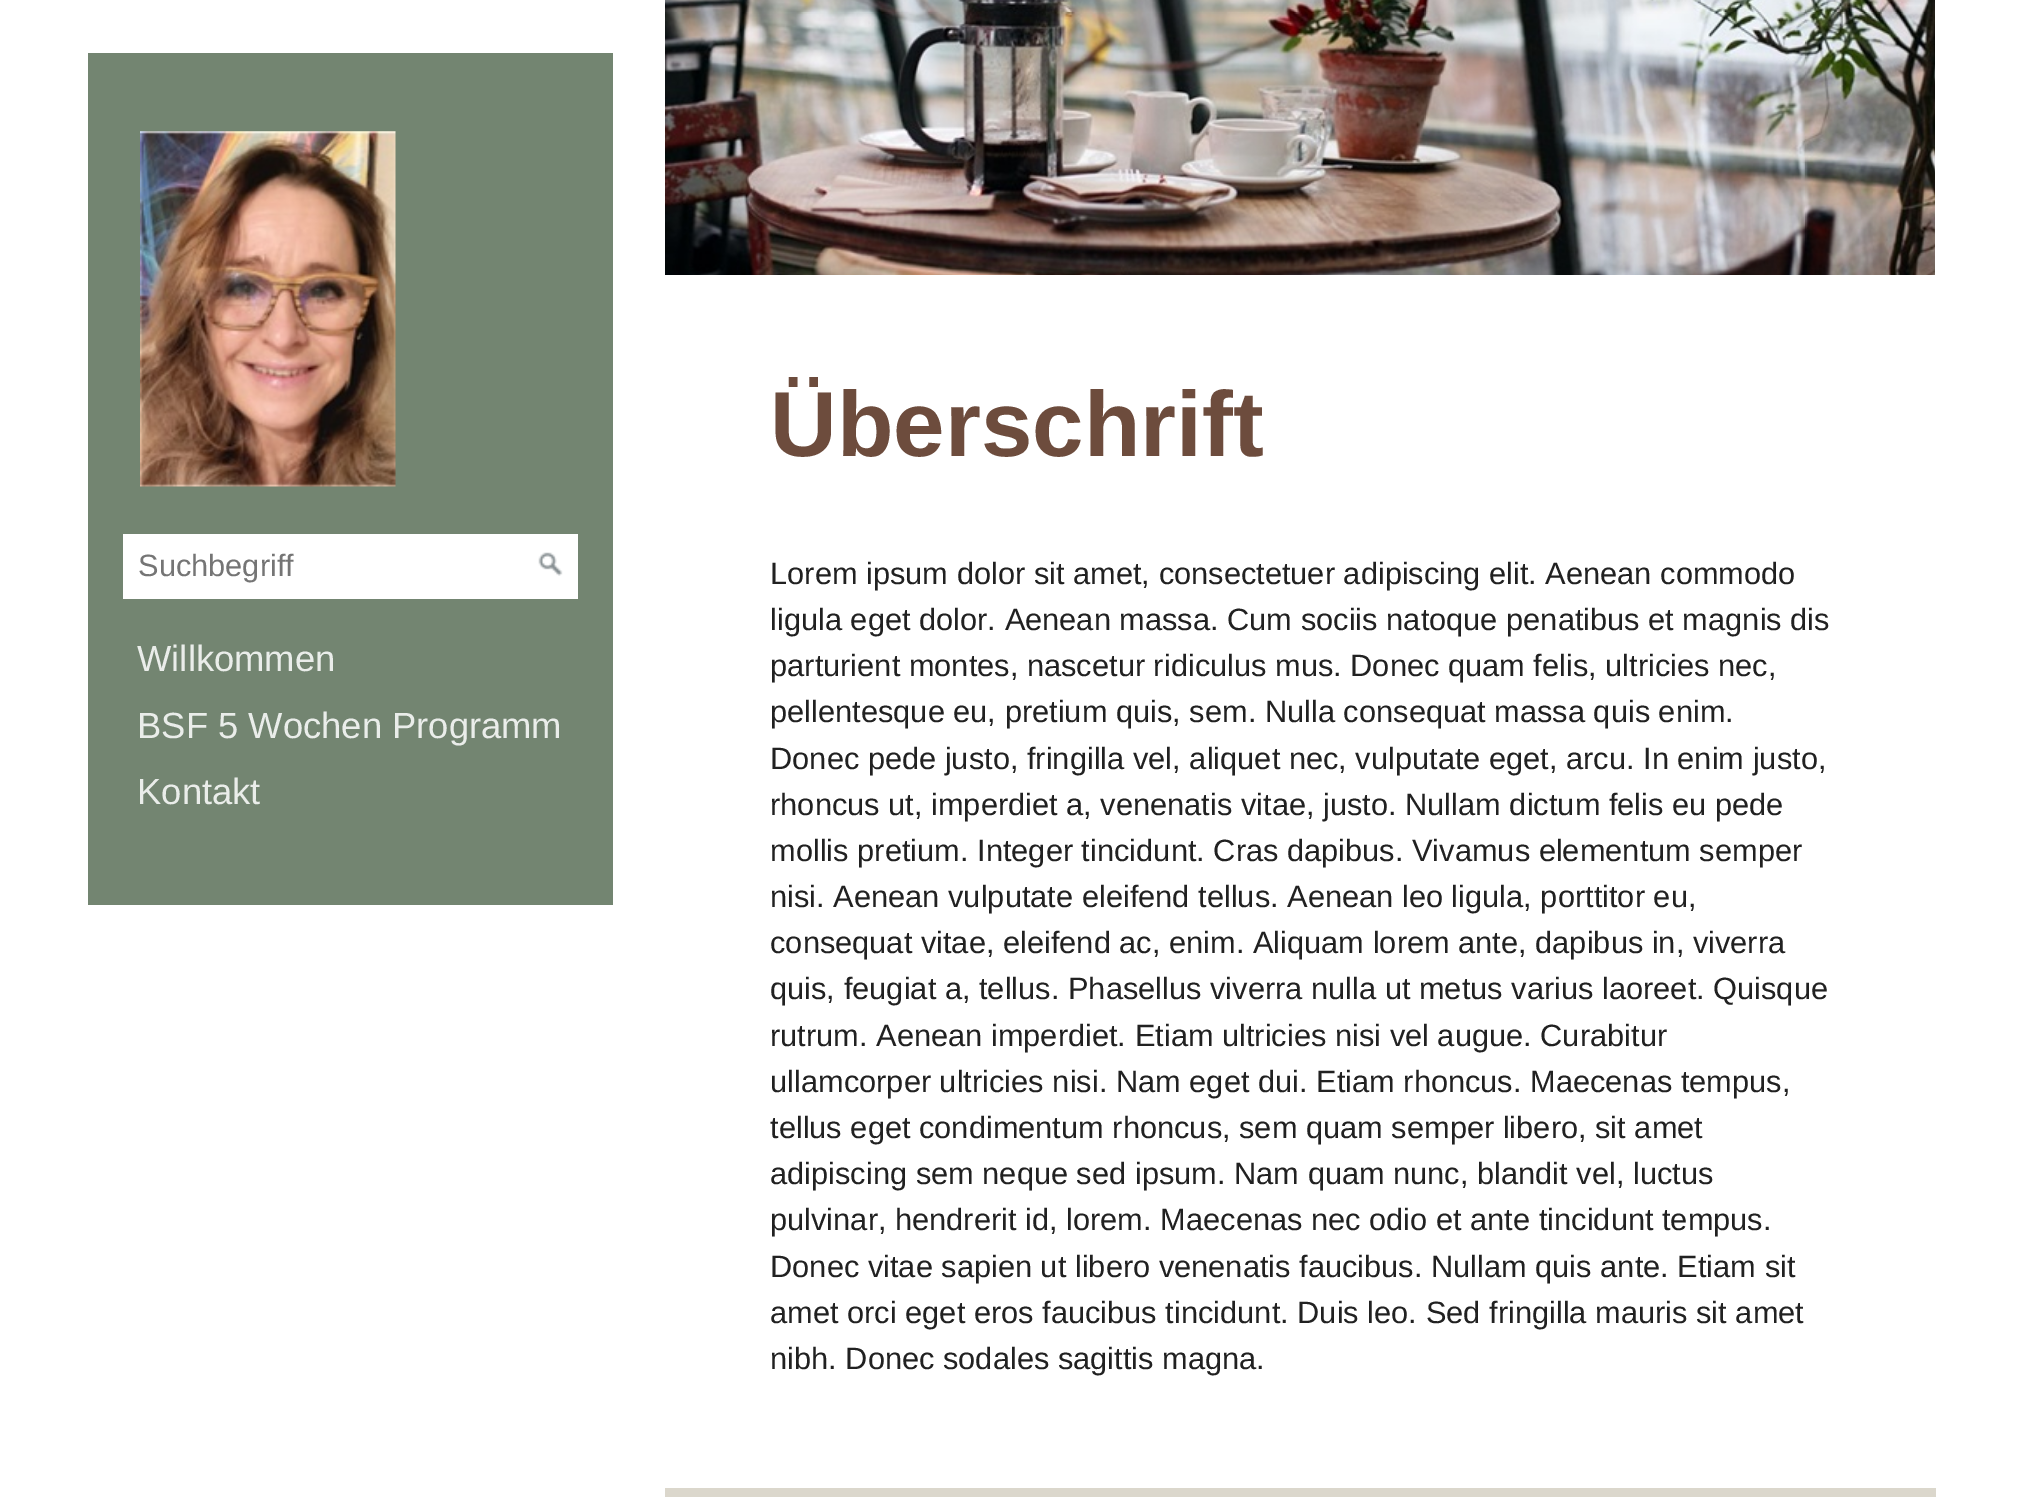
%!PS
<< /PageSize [2023 1497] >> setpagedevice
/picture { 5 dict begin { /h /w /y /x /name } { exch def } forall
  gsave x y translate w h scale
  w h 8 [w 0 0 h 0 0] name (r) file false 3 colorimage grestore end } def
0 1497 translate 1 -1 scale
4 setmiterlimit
1 setgray
0 0 2023 1497 rectfill
0.451 0.522 0.443 setrgbcolor
88 53 525 852 rectfill
(img1.rgb) 140 131 256 356 picture
1 setgray
123 534 455 65 rectfill
/LiberationSans-Regular [30.8 0 0 -30.8 0 0] selectfont
0.459 setgray
138 576 moveto (Suchbegriff) show
(img2.rgb) 538 552 25 24 picture
/LiberationSans-Regular [36.4 0 0 -36.4 0 0] selectfont
0.918 0.929 0.918 setrgbcolor
137 671 moveto (Willkommen) show
137 738 moveto (BSF 5 Wochen Programm) show
137 804 moveto (Kontakt) show
(img3.rgb) 665 0 1270 275 picture
/LiberationSans-Bold [92.5 0 0 -92.5 0 0] selectfont
0.427 0.298 0.239 setrgbcolor
770 456 moveto (Überschrift) show
/LiberationSans-Regular [30.8 0 0 -30.8 0 0] selectfont
0.129 setgray
770 584 moveto (Lorem ipsum dolor sit amet, consectetuer adipiscing elit. Aenean commodo) show
770 630 moveto (ligula eget dolor. Aenean massa. Cum sociis natoque penatibus et magnis dis) show
770 676 moveto (parturient montes, nascetur ridiculus mus. Donec quam felis, ultricies nec,) show
770 722 moveto (pellentesque eu, pretium quis, sem. Nulla consequat massa quis enim.) show
770 769 moveto (Donec pede justo, fringilla vel, aliquet nec, vulputate eget, arcu. In enim justo,) show
770 815 moveto (rhoncus ut, imperdiet a, venenatis vitae, justo. Nullam dictum felis eu pede) show
770 861 moveto (mollis pretium. Integer tincidunt. Cras dapibus. Vivamus elementum semper) show
770 907 moveto (nisi. Aenean vulputate eleifend tellus. Aenean leo ligula, porttitor eu,) show
770 953 moveto (consequat vitae, eleifend ac, enim. Aliquam lorem ante, dapibus in, viverra) show
770 999 moveto (quis, feugiat a, tellus. Phasellus viverra nulla ut metus varius laoreet. Quisque) show
770 1046 moveto (rutrum. Aenean imperdiet. Etiam ultricies nisi vel augue. Curabitur) show
770 1092 moveto (ullamcorper ultricies nisi. Nam eget dui. Etiam rhoncus. Maecenas tempus,) show
770 1138 moveto (tellus eget condimentum rhoncus, sem quam semper libero, sit amet) show
770 1184 moveto (adipiscing sem neque sed ipsum. Nam quam nunc, blandit vel, luctus) show
770 1230 moveto (pulvinar, hendrerit id, lorem. Maecenas nec odio et ante tincidunt tempus.) show
770 1277 moveto (Donec vitae sapien ut libero venenatis faucibus. Nullam quis ante. Etiam sit) show
770 1323 moveto (amet orci eget eros faucibus tincidunt. Duis leo. Sed fringilla mauris sit amet) show
770 1369 moveto (nibh. Donec sodales sagittis magna.) show
0.859 0.843 0.8 setrgbcolor
665 1488 1271 9 rectfill
showpage
